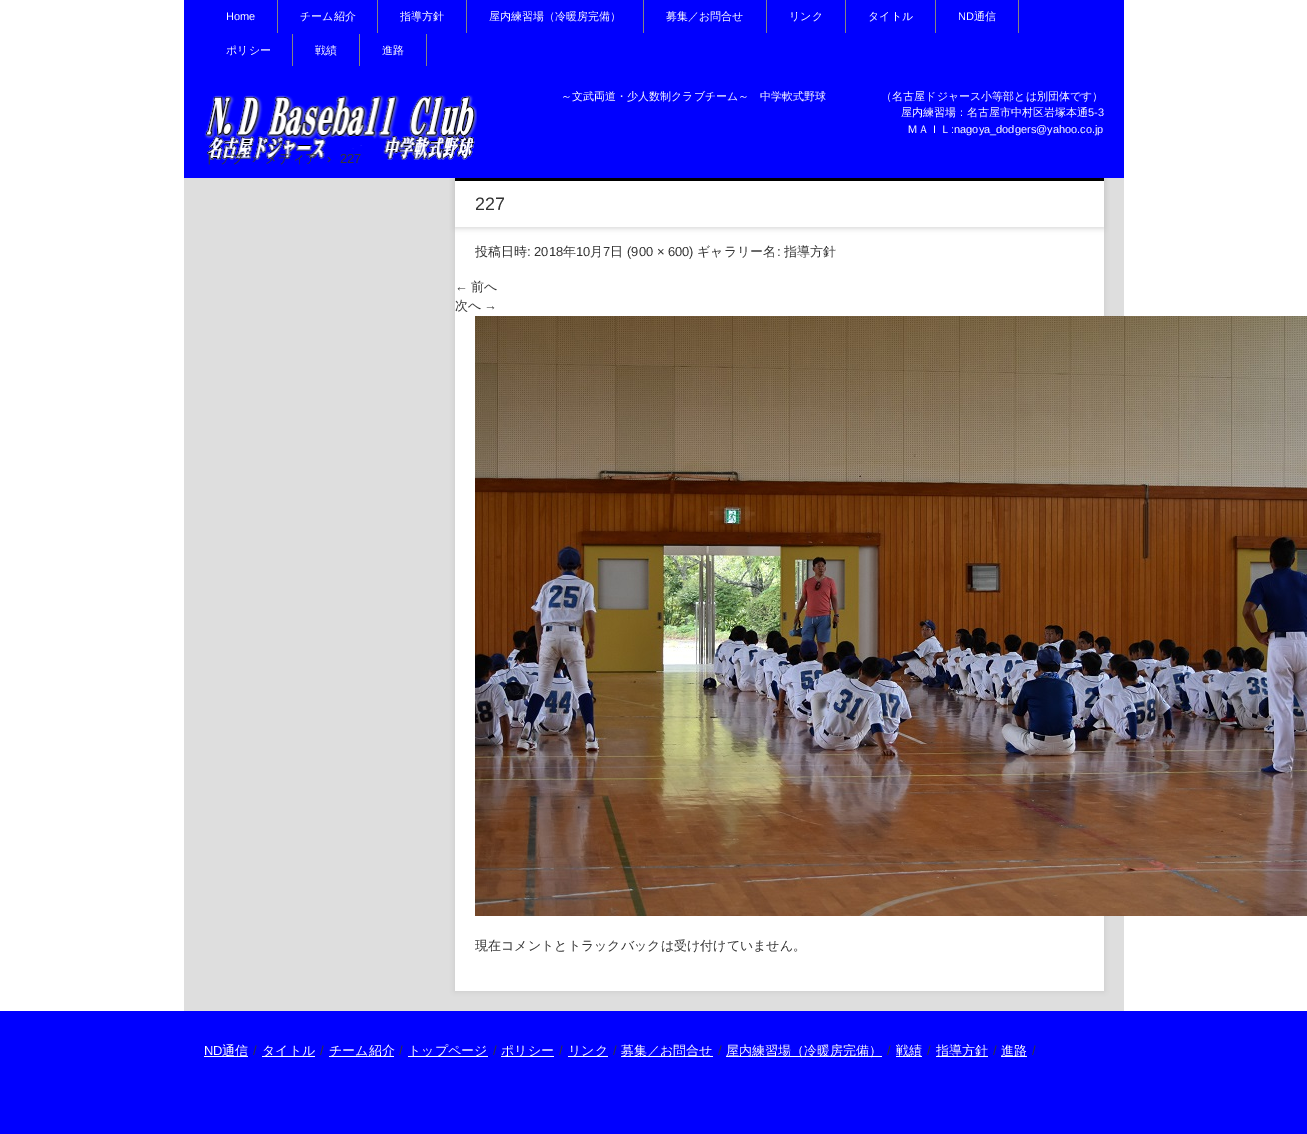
%!PS
<< /PageSize [1307 1134] /PageUsesTransparency true >> setpagedevice
/alpha { dup .setfillconstantalpha .setstrokeconstantalpha } def
/roundrect { 5 dict begin { /r /h /w /y /x } { exch def } forall
  x r add y moveto x w add y 2 copy h add r arct x w add y h add x 1 index r arct
  x y h add x y r arct x y 2 copy exch w add exch r arct closepath end } def
/shadow { 12 dict begin { /a /b /q /h /w /y /x } { exch def } forall gsave /was 0 def
  9 -2 -9 { dup b mul 4 div /e exch def 1 sub .425 mul 2.718 exch exp 1 add a .99 .min exch div /now exch def
    1 1 now sub 1 was sub div sub alpha /was now def
    w h .min e 2 mul add 0 gt { x e sub y e sub w e 2 mul add h e 2 mul add
      q e add b .6 mul add w h .min 2 div e add .min 0 .max roundrect fill } if } for grestore end } def
/picture { 5 dict begin { /h /w /y /x /name } { exch def } forall
  gsave x y translate w h scale
  w h 8 [w 0 0 h 0 0] name (r) file false 3 colorimage grestore end } def
0 .pushpdf14devicefilter
0 1134 translate 1 -1 scale
4 setmiterlimit
1 setgray
0 0 1307 1134 rectfill
0.871 setgray
184 178 940 833 rectfill
0.753 setgray
455 178 649 813 0 3 0.75 shadow
1 setgray
455 181 649 810 rectfill
gsave
newpath 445 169 moveto 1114 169 lineto 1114 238 lineto 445 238 lineto closepath 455 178 moveto 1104 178 lineto 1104 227 lineto 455 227 lineto closepath eoclip newpath
0.753 setgray
455 179 649 49 0 3 0.75 shadow
grestore
0 0 1 setrgbcolor
184 0 940 178 rectfill
0.514 setgray
277 0 1 33 rectfill
/LiberationSans-Regular [11 0 0 -11 0 0] selectfont
1 setgray
226 20 moveto (Home) show
0.514 setgray
377 0 1 33 rectfill
/WenQuanYiZenHei-Medium [11 0 0 -11 0 0] selectfont
1 setgray
300 20 moveto (チーム紹介) show
0.514 setgray
466 0 1 33 rectfill
1 setgray
400 20 moveto (指導方針) show
0.514 setgray
643 0 1 33 rectfill
1 setgray
489 20 moveto (屋内練習場（冷暖房完備）) show
0.514 setgray
766 0 1 33 rectfill
1 setgray
666 20 moveto (募集／お問合せ) show
0.514 setgray
845 0 1 33 rectfill
1 setgray
789 20 moveto (リンク) show
0.514 setgray
935 0 1 33 rectfill
1 setgray
868 20 moveto (タイトル) show
0.514 setgray
1018 0 1 33 rectfill
/LiberationSans-Regular [11 0 0 -11 0 0] selectfont
1 setgray
958 20 moveto (ND) show
/WenQuanYiZenHei-Medium [11 0 0 -11 0 0] selectfont
974 20 moveto (通信) show
0.514 setgray
292 34 1 32 rectfill
1 setgray
226 54 moveto (ポリシー) show
0.514 setgray
359 34 1 32 rectfill
1 setgray
315 54 moveto (戦績) show
0.514 setgray
426 34 1 32 rectfill
1 setgray
382 54 moveto (進路) show
(img1.rgb) 204 95 273 65 picture
561 100 moveto (～文武両道・少人数制クラブチーム～　中学軟式野球　　　　　（名古屋ドジャース小等部とは別団体です）) show
901 116 moveto (屋内練習場：名古屋市中村区岩塚本通) show
/LiberationSans-Regular [11 0 0 -11 0 0] selectfont
1088 116 moveto (5-3) show
/WenQuanYiZenHei-Medium [11 0 0 -11 0 0] selectfont
907 133 moveto (ＭＡＩＬ) show
/LiberationSans-Regular [11 0 0 -11 0 0] selectfont
951 133 moveto (:nagoya_dodgers@yahoo.co.jp) show
/WenQuanYiZenHei-Medium [13 0 0 -13 0 0] selectfont
0.2 setgray
204 163 moveto (トップ) show
/LiberationSans-Regular [13 0 0 -13 0 0] selectfont
252 163 moveto (›) show
/WenQuanYiZenHei-Medium [13 0 0 -13 0 0] selectfont
265 163 moveto (メディア) show
/LiberationSans-Regular [13 0 0 -13 0 0] selectfont
327 163 moveto (›) show
340 163 moveto (227) show
0 setgray
455 178 649 3 rectfill
/LiberationSans-Regular [18 0 0 -18 0 0] selectfont
0.2 setgray
475 210 moveto (227) show
/WenQuanYiZenHei-Medium [13 0 0 -13 0 0] selectfont
475 256 moveto (投稿日時) show
/LiberationSans-Regular [13 0 0 -13 0 0] selectfont
527 256 moveto (: 2018) show
/WenQuanYiZenHei-Medium [13 0 0 -13 0 0] selectfont
563 256 moveto (年) show
/LiberationSans-Regular [13 0 0 -13 0 0] selectfont
576 256 moveto (10) show
/WenQuanYiZenHei-Medium [13 0 0 -13 0 0] selectfont
590 256 moveto (月) show
/LiberationSans-Regular [13 0 0 -13 0 0] selectfont
603 256 moveto (7) show
/WenQuanYiZenHei-Medium [13 0 0 -13 0 0] selectfont
610 256 moveto (日) show
/LiberationSans-Regular [13 0 0 -13 0 0] selectfont
627 256 moveto (\(900 × 600\)) show
/WenQuanYiZenHei-Medium [13 0 0 -13 0 0] selectfont
697 256 moveto (ギャラリー名) show
/LiberationSans-Regular [13 0 0 -13 0 0] selectfont
777 256 moveto (:) show
/WenQuanYiZenHei-Medium [13 0 0 -13 0 0] selectfont
784 256 moveto (指導方針) show
/LiberationSans-Regular [13 0 0 -13 0 0] selectfont
455 291 moveto (←) show
/WenQuanYiZenHei-Medium [13 0 0 -13 0 0] selectfont
471 291 moveto (前へ) show
455 310 moveto (次へ) show
/LiberationSans-Regular [13 0 0 -13 0 0] selectfont
484 310 moveto (→) show
(img2.rgb) 475 316 832 600 picture
/WenQuanYiZenHei-Medium [13 0 0 -13 0 0] selectfont
475 950 moveto (現在コメントとトラックバックは受け付けていません。) show
0 0 1 setrgbcolor
0 1011 1307 123 rectfill
/LiberationSans-Regular [13 0 0 -13 0 0] selectfont
1 setgray
204 1055 moveto (ND) show
204 1056 44 1 rectfill
/WenQuanYiZenHei-Medium [13 0 0 -13 0 0] selectfont
222 1055 moveto (通信) show
/LiberationSans-Regular [13 0 0 -13 0 0] selectfont
0.2 setgray
253 1055 moveto (/) show
1 setgray
262 1056 53 1 rectfill
/WenQuanYiZenHei-Medium [13 0 0 -13 0 0] selectfont
262 1055 moveto (タイトル) show
/LiberationSans-Regular [13 0 0 -13 0 0] selectfont
0.2 setgray
320 1055 moveto (/) show
1 setgray
329 1056 65 1 rectfill
/WenQuanYiZenHei-Medium [13 0 0 -13 0 0] selectfont
329 1055 moveto (チーム紹介) show
/LiberationSans-Regular [13 0 0 -13 0 0] selectfont
0.2 setgray
399 1055 moveto (/) show
1 setgray
408 1056 80 1 rectfill
/WenQuanYiZenHei-Medium [13 0 0 -13 0 0] selectfont
408 1055 moveto (トップページ) show
/LiberationSans-Regular [13 0 0 -13 0 0] selectfont
0.2 setgray
493 1055 moveto (/) show
1 setgray
501 1056 53 1 rectfill
/WenQuanYiZenHei-Medium [13 0 0 -13 0 0] selectfont
501 1055 moveto (ポリシー) show
/LiberationSans-Regular [13 0 0 -13 0 0] selectfont
0.2 setgray
559 1055 moveto (/) show
1 setgray
568 1056 40 1 rectfill
/WenQuanYiZenHei-Medium [13 0 0 -13 0 0] selectfont
568 1055 moveto (リンク) show
/LiberationSans-Regular [13 0 0 -13 0 0] selectfont
0.2 setgray
613 1055 moveto (/) show
1 setgray
621 1056 92 1 rectfill
/WenQuanYiZenHei-Medium [13 0 0 -13 0 0] selectfont
621 1055 moveto (募集／お問合せ) show
/LiberationSans-Regular [13 0 0 -13 0 0] selectfont
0.2 setgray
718 1055 moveto (/) show
1 setgray
726 1056 156 1 rectfill
/WenQuanYiZenHei-Medium [13 0 0 -13 0 0] selectfont
726 1055 moveto (屋内練習場（冷暖房完備）) show
/LiberationSans-Regular [13 0 0 -13 0 0] selectfont
0.2 setgray
887 1055 moveto (/) show
1 setgray
896 1056 26 1 rectfill
/WenQuanYiZenHei-Medium [13 0 0 -13 0 0] selectfont
896 1055 moveto (戦績) show
/LiberationSans-Regular [13 0 0 -13 0 0] selectfont
0.2 setgray
927 1055 moveto (/) show
1 setgray
936 1056 52 1 rectfill
/WenQuanYiZenHei-Medium [13 0 0 -13 0 0] selectfont
936 1055 moveto (指導方針) show
/LiberationSans-Regular [13 0 0 -13 0 0] selectfont
0.2 setgray
993 1055 moveto (/) show
1 setgray
1001 1056 26 1 rectfill
/WenQuanYiZenHei-Medium [13 0 0 -13 0 0] selectfont
1001 1055 moveto (進路) show
/LiberationSans-Regular [13 0 0 -13 0 0] selectfont
0.2 setgray
1032 1055 moveto (/) show
.poppdf14devicefilter showpage
